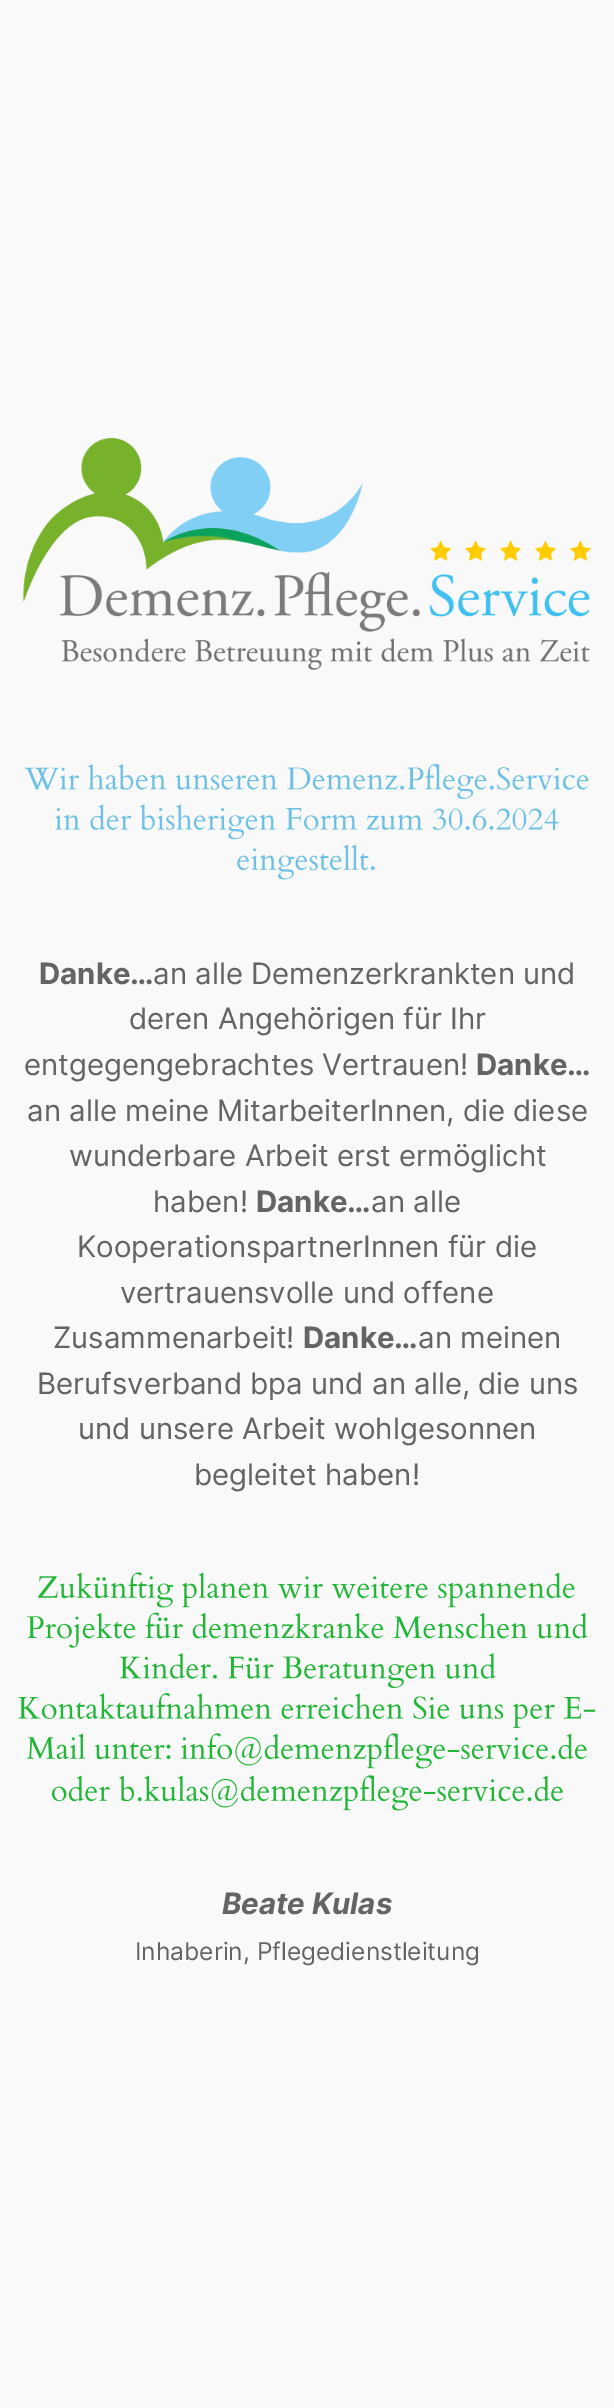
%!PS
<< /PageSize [614 2408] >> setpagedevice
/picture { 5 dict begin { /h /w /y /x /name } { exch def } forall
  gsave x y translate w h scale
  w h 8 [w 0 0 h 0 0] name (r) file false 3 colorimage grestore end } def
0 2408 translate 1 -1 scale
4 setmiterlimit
0.976 setgray
0 0 614 2408 rectfill
(img1.rgb) 22 438 570 232 picture
(img2.rgb) 24 763 565 36 picture
(img3.rgb) 55 804 504 36 picture
(img4.rgb) 237 844 138 36 picture
/Inter-Bold [29.4 0 0 -29.4 0 0] selectfont
0.392 setgray
39 984 moveto (Danke…) show
/Inter-Regular [29.4 0 0 -29.4 0 0] selectfont
153 984 moveto (an alle Demenzerkrankten und) show
129 1029 moveto (deren Angehörigen für Ihr) show
24 1075 moveto (entgegengebrachtes Vertrauen!) show
/Inter-Bold [29.4 0 0 -29.4 0 0] selectfont
476 1075 moveto (Danke…) show
/Inter-Regular [29.4 0 0 -29.4 0 0] selectfont
27 1121 moveto (an alle meine MitarbeiterInnen, die diese) show
69 1166 moveto (wunderbare Arbeit erst ermöglicht) show
153 1212 moveto (haben!) show
/Inter-Bold [29.4 0 0 -29.4 0 0] selectfont
256 1212 moveto (Danke…) show
/Inter-Regular [29.4 0 0 -29.4 0 0] selectfont
371 1212 moveto (an alle) show
77 1257 moveto (KooperationspartnerInnen für die) show
120 1303 moveto (vertrauensvolle und offene) show
53 1348 moveto (Zusammenarbeit!) show
/Inter-Bold [29.4 0 0 -29.4 0 0] selectfont
303 1348 moveto (Danke…) show
/Inter-Regular [29.4 0 0 -29.4 0 0] selectfont
418 1348 moveto (an meinen) show
37 1394 moveto (Berufsverband bpa und an alle, die uns) show
78 1439 moveto (und unsere Arbeit wohlgesonnen) show
194 1485 moveto (begleitet haben!) show
(img5.rgb) 37 1572 538 36 picture
(img6.rgb) 26 1612 562 36 picture
(img7.rgb) 119 1653 377 35 picture
(img8.rgb) 18 1693 578 35 picture
(img9.rgb) 26 1733 145 27 picture
(img10.rgb) 181 1733 406 36 picture
(img11.rgb) 51 1775 59 27 picture
(img12.rgb) 119 1775 444 36 picture
/Inter-BoldItalic [29.4 0 0 -29.4 0 0] selectfont
222 1914 moveto (Beate Kulas) show
/Inter-Regular [24.5 0 0 -24.5 0 0] selectfont
135 1960 moveto (Inhaberin, Pflegedienstleitung) show
showpage
